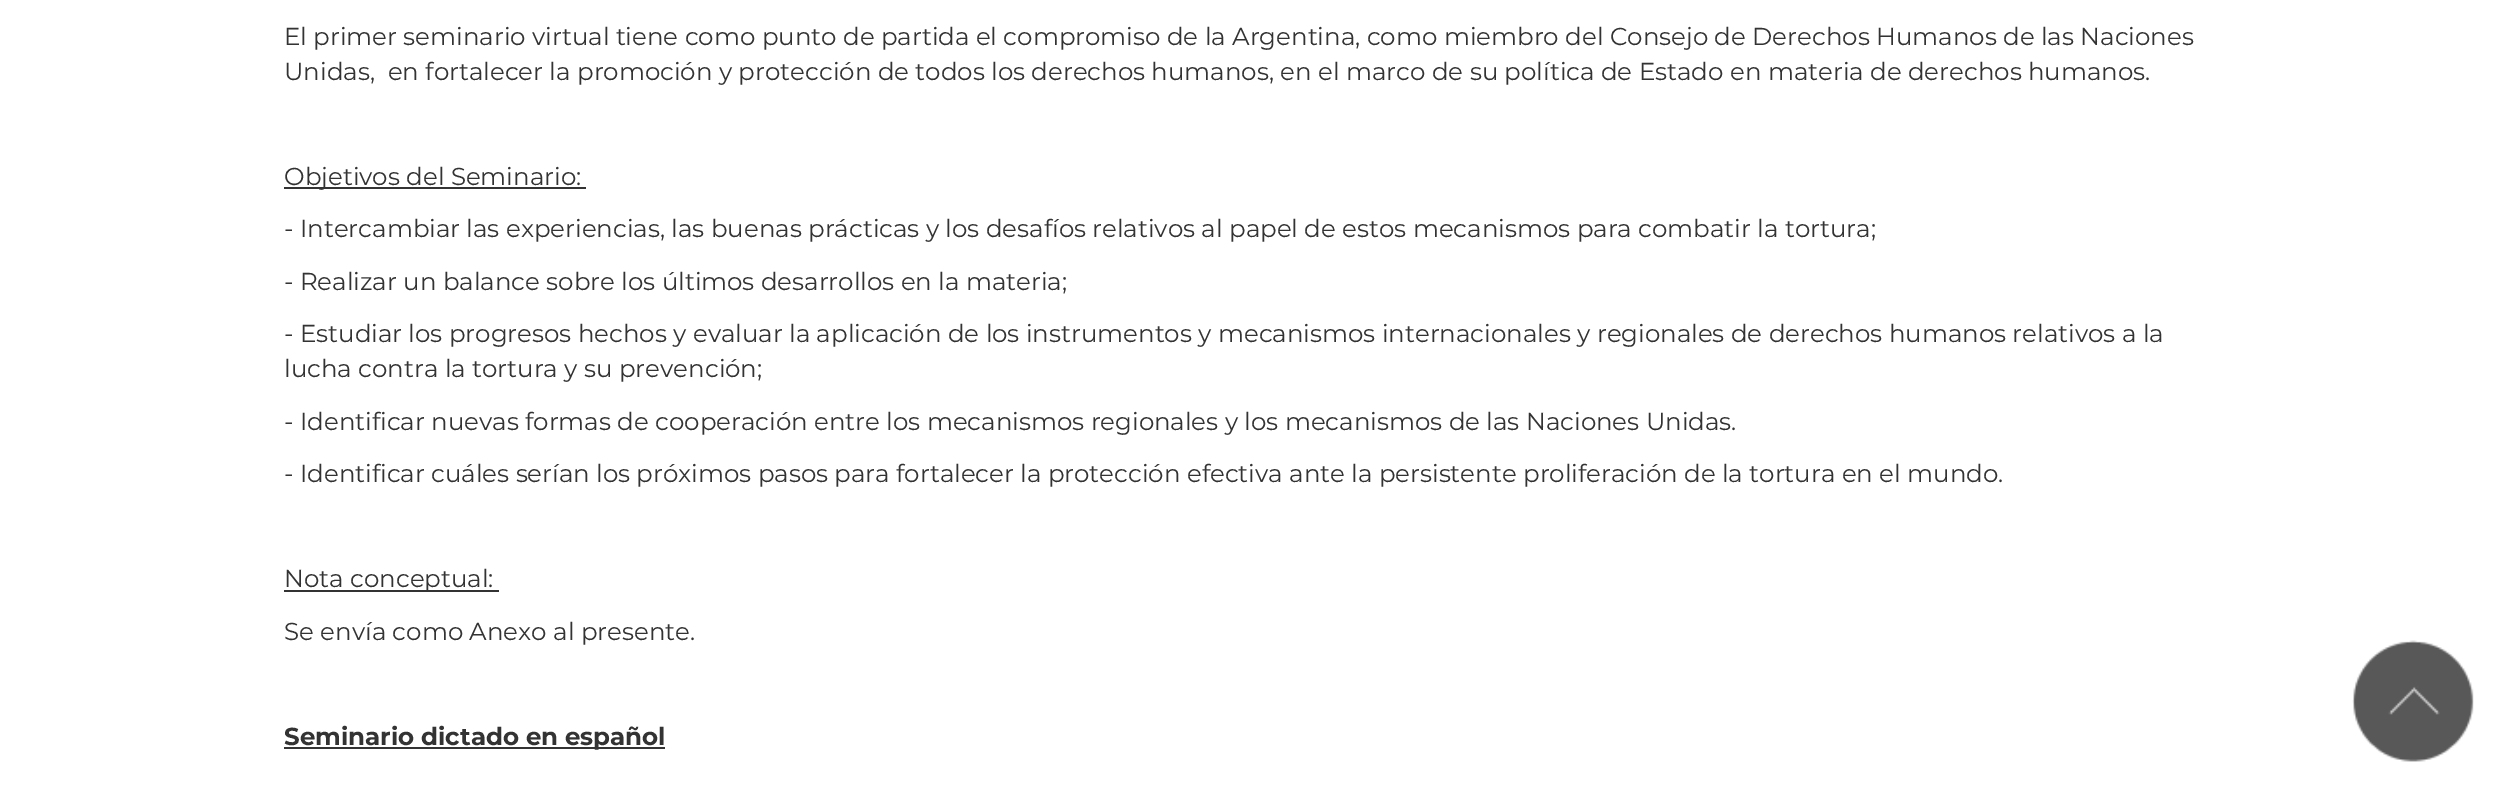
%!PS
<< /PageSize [2509 797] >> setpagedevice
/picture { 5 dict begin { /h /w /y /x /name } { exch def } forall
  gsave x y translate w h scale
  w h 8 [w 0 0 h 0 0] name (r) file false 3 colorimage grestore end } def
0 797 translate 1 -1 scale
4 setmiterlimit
1 setgray
0 0 2509 797 rectfill
/Montserrat-Regular [24.5 0 0 -24.5 0 0] selectfont
0.2 setgray
284 45 moveto (El primer seminario virtual tiene como punto de partida el compromiso de la Argentina, como miembro del Consejo de Derechos Humanos de las Naciones) show
284 80 moveto (Unidas,  en fortalecer la promoción y protección de todos los derechos humanos, en el marco de su política de Estado en materia de derechos humanos.) show
284 187 302 2 rectfill
284 185 moveto (Objetivos del Seminario:) show
284 237 moveto (- Intercambiar las experiencias, las buenas prácticas y los desafíos relativos al papel de estos mecanismos para combatir la tortura;) show
284 290 moveto (- Realizar un balance sobre los últimos desarrollos en la materia;) show
284 342 moveto (- Estudiar los progresos hechos y evaluar la aplicación de los instrumentos y mecanismos internacionales y regionales de derechos humanos relativos a la) show
284 377 moveto (lucha contra la tortura y su prevención;) show
284 430 moveto (- Identificar nuevas formas de cooperación entre los mecanismos regionales y los mecanismos de las Naciones Unidas.) show
284 482 moveto (- Identificar cuáles serían los próximos pasos para fortalecer la protección efectiva ante la persistente proliferación de la tortura en el mundo.) show
284 590 215 2 rectfill
284 587 moveto (Nota conceptual:) show
284 640 moveto (Se envía como Anexo al presente.) show
284 747 381 2 rectfill
/Montserrat-Bold [24.5 0 0 -24.5 0 0] selectfont
284 745 moveto (Seminario dictado en español) show
(img1.rgb) 2352 640 122 122 picture
showpage
